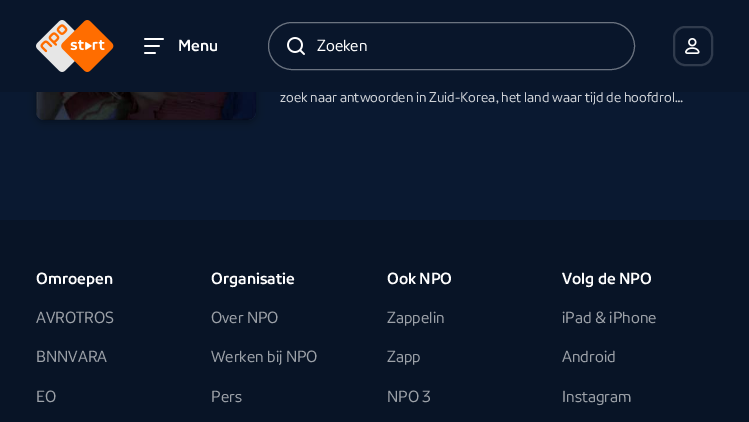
%!PS
<< /PageSize [749 422] /PageUsesTransparency true >> setpagedevice
/alpha { dup .setfillconstantalpha .setstrokeconstantalpha } def
/roundrect { 5 dict begin { /r /h /w /y /x } { exch def } forall
  x r add y moveto x w add y 2 copy h add r arct x w add y h add x 1 index r arct
  x y h add x y r arct x y 2 copy exch w add exch r arct closepath end } def
/shadow { 12 dict begin { /a /b /q /h /w /y /x } { exch def } forall gsave /was 0 def
  9 -2 -9 { dup b mul 4 div /e exch def 1 sub .425 mul 2.718 exch exp 1 add a .99 .min exch div /now exch def
    1 1 now sub 1 was sub div sub alpha /was now def
    w h .min e 2 mul add 0 gt { x e sub y e sub w e 2 mul add h e 2 mul add
      q e add b .6 mul add w h .min 2 div e add .min 0 .max roundrect fill } if } for grestore end } def
/picture { 5 dict begin { /h /w /y /x /name } { exch def } forall
  gsave x y translate w h scale
  w h 8 [w 0 0 h 0 0] name (r) file false 3 colorimage grestore end } def
0 .pushpdf14devicefilter
0 422 translate 1 -1 scale
4 setmiterlimit
0.039 0.098 0.192 setrgbcolor
0 0 749 422 rectfill
0 setgray
36 -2 220 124 8 4 0.35 shadow
0.122 0.2 0.325 setrgbcolor
36 -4 220 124 8 roundrect fill
/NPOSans-Regular [14 0 0 -14 0 0] selectfont
0.808 0.82 0.839 setrgbcolor
280 102 moveto (zoek naar antwoorden in Zuid-Korea, het land waar tijd de hoofdrol…) show
0.035 0.086 0.169 setrgbcolor
0 0 749 92 rectfill
(img1.rgb) 36 20 78 52 picture
(img2.rgb) 144 38 20 16 picture
/NPOSans-Bold [16 0 0 -16 0 0] selectfont
1 setgray
178 51 moveto (Menu) show
0.42 0.451 0.502 setrgbcolor
268.5 22.5 366 47 23.5 roundrect stroke
(img3.rgb) 287 37 18 18 picture
/NPOSans-Regular [16 0 0 -16 0 0] selectfont
1 setgray
317 51 moveto (Zoeken) show
0.188 0.231 0.302 setrgbcolor
2 setlinewidth
674 27 38 38 11 roundrect stroke
(img4.rgb) 685 38 15 16 picture
(img5.rgb) 36 92 220 28 picture
0.031 0.078 0.149 setrgbcolor
0 220 749 202 rectfill
/NPOSans-Bold [16 0 0 -16 0 0] selectfont
1 setgray
36 284 moveto (Omroepen) show
/NPOSans-Regular [16 0 0 -16 0 0] selectfont
0.612 0.631 0.659 setrgbcolor
36 323 moveto (AVROTROS) show
36 362 moveto (BNNVARA) show
36 402 moveto (EO) show
/NPOSans-Bold [16 0 0 -16 0 0] selectfont
1 setgray
211 284 moveto (Organisatie) show
/NPOSans-Regular [16 0 0 -16 0 0] selectfont
0.612 0.631 0.659 setrgbcolor
211 323 moveto (Over NPO) show
211 362 moveto (Werken bij NPO) show
211 402 moveto (Pers) show
/NPOSans-Bold [16 0 0 -16 0 0] selectfont
1 setgray
387 284 moveto (Ook NPO) show
/NPOSans-Regular [16 0 0 -16 0 0] selectfont
0.612 0.631 0.659 setrgbcolor
387 323 moveto (Zappelin) show
387 362 moveto (Zapp) show
387 402 moveto (NPO 3) show
/NPOSans-Bold [16 0 0 -16 0 0] selectfont
1 setgray
562 284 moveto (Volg de NPO) show
/NPOSans-Regular [16 0 0 -16 0 0] selectfont
0.612 0.631 0.659 setrgbcolor
562 323 moveto (iPad & iPhone) show
562 362 moveto (Android) show
562 402 moveto (Instagram) show
.poppdf14devicefilter showpage
